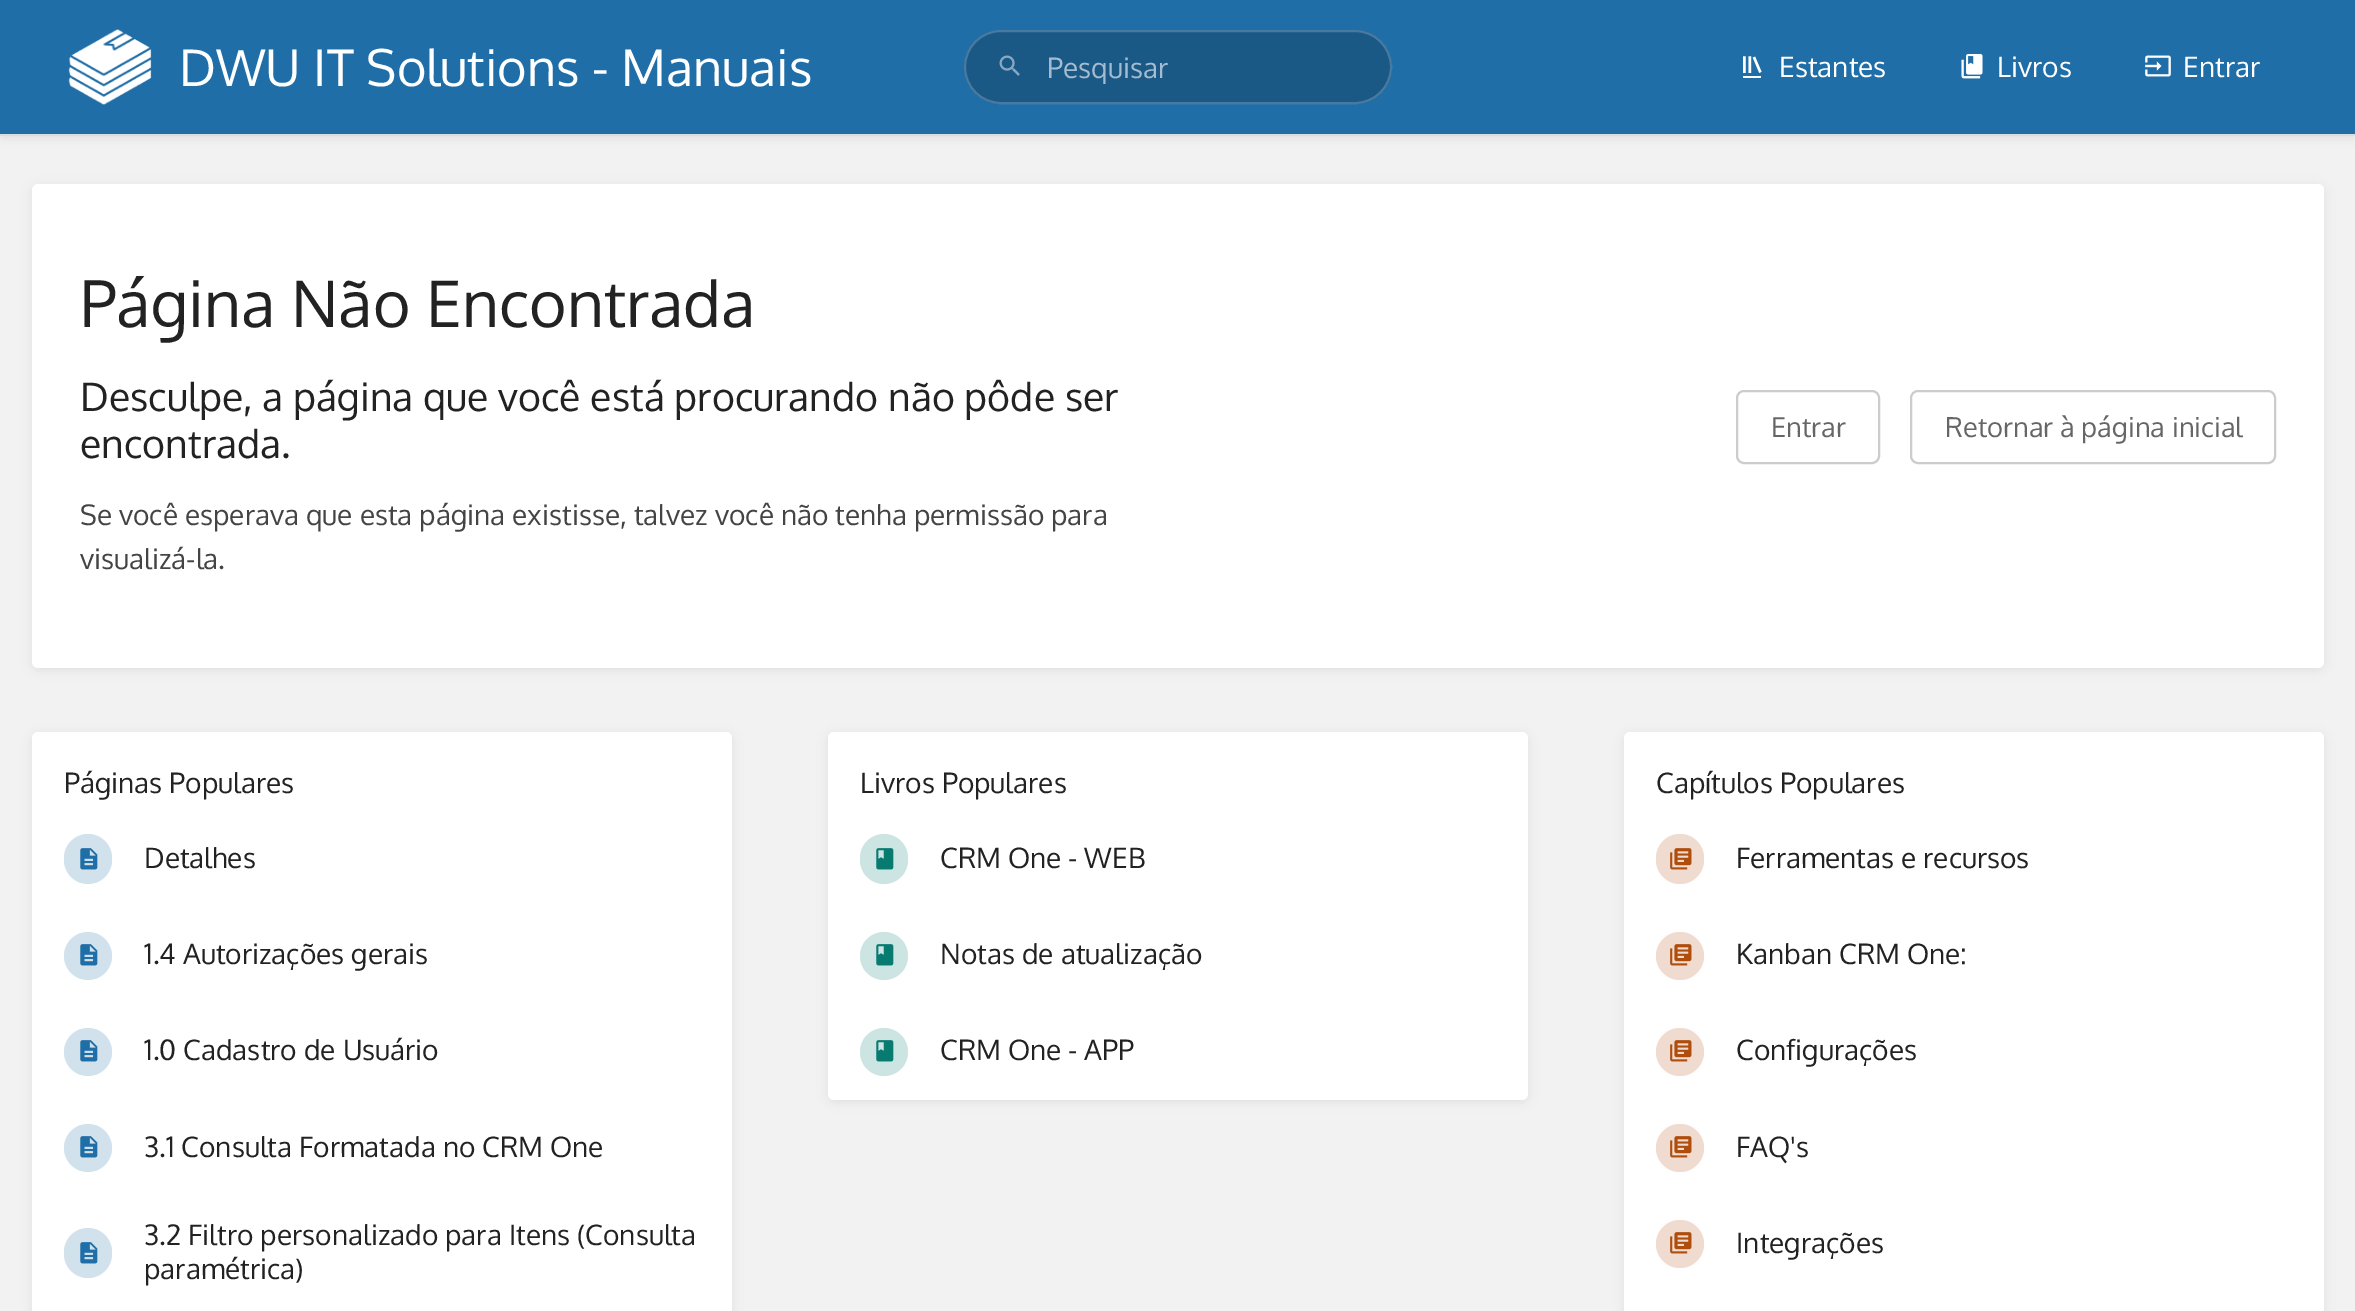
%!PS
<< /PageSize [2355 1311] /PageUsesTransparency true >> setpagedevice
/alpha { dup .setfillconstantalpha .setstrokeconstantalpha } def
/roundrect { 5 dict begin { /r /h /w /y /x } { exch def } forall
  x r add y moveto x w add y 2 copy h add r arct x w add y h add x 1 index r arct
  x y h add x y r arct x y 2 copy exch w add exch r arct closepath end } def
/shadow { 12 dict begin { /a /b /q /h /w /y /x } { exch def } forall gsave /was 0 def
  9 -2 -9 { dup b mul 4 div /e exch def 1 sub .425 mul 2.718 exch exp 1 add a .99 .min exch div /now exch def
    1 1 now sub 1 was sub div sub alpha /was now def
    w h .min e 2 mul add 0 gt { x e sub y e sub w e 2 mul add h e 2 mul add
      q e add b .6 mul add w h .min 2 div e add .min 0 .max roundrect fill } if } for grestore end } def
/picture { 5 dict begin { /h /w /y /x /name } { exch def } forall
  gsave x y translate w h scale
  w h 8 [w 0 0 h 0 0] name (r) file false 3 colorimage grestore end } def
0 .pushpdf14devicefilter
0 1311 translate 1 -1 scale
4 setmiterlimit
0.949 setgray
0 0 2355 1311 rectfill
0 setgray
2 4 2352 132 0 6 0.1 shadow
0.125 0.431 0.655 setrgbcolor
0 0 2355 134 rectfill
0.867 setgray
0 134 2355 2 rectfill
(img1.rgb) 68 29 84 76 picture
/Oxygen-Regular [50.4 0 0 -50.4 0 0] selectfont
1 setgray
179 86 moveto (DWU IT Solutions - Manuais) show
0.102 0.345 0.525 setrgbcolor
964 30 428 74 37 roundrect fill
0.2 alpha
1 setgray
2 setlinewidth
965 31 426 72 36 roundrect stroke
1 alpha
(img2.rgb) 999 55 21 21 picture
gsave
1046 50 326 34 rectclip
/Oxygen-Regular [28 0 0 -28 0 0] selectfont
0.639 0.737 0.812 setrgbcolor
1047 78 moveto (Pesquisar) show
grestore
(img3.rgb) 1743 56 19 22 picture
/Oxygen-Regular [28 0 0 -28 0 0] selectfont
1779 77 moveto (Estantes) show
(img4.rgb) 1961 54 22 25 picture
1997 77 moveto (Livros) show
(img5.rgb) 2145 55 26 22 picture
2183 77 moveto (Entrar) show
0 setgray
34 188 2288 480 4 6 0.1 shadow
1 setgray
32 184 2292 484 6 roundrect fill
/Oxygen-Regular [64 0 0 -64 0 0] selectfont
0.133 setgray
80 327 moveto (Página Não Encontrada) show
/Oxygen-Regular [39.2 0 0 -39.2 0 0] selectfont
80 411 moveto (Desculpe, a página que você está procurando não pôde ser) show
80 458 moveto (encontrada.) show
/Oxygen-Regular [28 0 0 -28 0 0] selectfont
0.267 setgray
80 525 moveto (Se você esperava que esta página existisse, talvez você não tenha permissão para) show
80 569 moveto (visualizá-la.) show
0.8 setgray
1737 391 142 72 7 roundrect stroke
/Oxygen-Regular [27.25 0 0 -27.25 0 0] selectfont
0.4 setgray
1771 437 moveto (Entrar) show
0.8 setgray
1911 391 364 72 7 roundrect stroke
0.4 setgray
1945 437 moveto (Retornar à página inicial) show
0 setgray
34 736 696 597 4 6 0.1 shadow
1 setgray
32 732 700 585 6 roundrect fill
/Oxygen-Regular [28 0 0 -28 0 0] selectfont
0.133 setgray
64 793 moveto (Páginas Populares) show
(img6.rgb) 80 848 18 22 picture
0.2 alpha
0.125 0.431 0.655 setrgbcolor
64 834 48 50 24 roundrect fill
1 alpha
0.133 setgray
144 868 moveto (Detalhes) show
(img6.rgb) 80 944 18 22 picture
0.2 alpha
0.125 0.431 0.655 setrgbcolor
newpath 88 956 24 0 360 arc closepath fill
1 alpha
0.133 setgray
144 964 moveto (1.4 Autorizações gerais) show
(img6.rgb) 80 1040 18 22 picture
0.2 alpha
0.125 0.431 0.655 setrgbcolor
newpath 88 1052 24 0 360 arc closepath fill
1 alpha
0.133 setgray
144 1060 moveto (1.0 Cadastro de Usuário) show
(img6.rgb) 80 1136 18 22 picture
0.2 alpha
0.125 0.431 0.655 setrgbcolor
newpath 88 1148 24 0 360 arc closepath fill
1 alpha
0.133 setgray
144 1157 moveto (3.1 Consulta Formatada no CRM One) show
(img6.rgb) 80 1242 18 22 picture
0.2 alpha
0.125 0.431 0.655 setrgbcolor
64 1228 48 50 24 roundrect fill
1 alpha
0.133 setgray
144 1245 moveto (3.2 Filtro personalizado para Itens \(Consulta) show
144 1279 moveto (paramétrica\)) show
0 setgray
830 736 696 364 4 6 0.1 shadow
1 setgray
828 732 700 368 6 roundrect fill
0.133 setgray
860 793 moveto (Livros Populares) show
(img7.rgb) 876 848 18 22 picture
0.2 alpha
0.027 0.482 0.439 setrgbcolor
860 834 48 50 24 roundrect fill
1 alpha
0.133 setgray
940 868 moveto (CRM One - WEB) show
(img7.rgb) 876 944 18 22 picture
0.2 alpha
0.027 0.482 0.439 setrgbcolor
newpath 884 956 24 0 360 arc closepath fill
1 alpha
0.133 setgray
940 964 moveto (Notas de atualização) show
(img7.rgb) 876 1040 18 22 picture
0.2 alpha
0.027 0.482 0.439 setrgbcolor
newpath 884 1052 24 0 360 arc closepath fill
1 alpha
0.133 setgray
940 1060 moveto (CRM One - APP) show
0 setgray
1626 736 696 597 4 6 0.1 shadow
1 setgray
1624 732 700 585 6 roundrect fill
0.133 setgray
1656 793 moveto (Capítulos Populares) show
(img8.rgb) 1670 848 22 22 picture
0.2 alpha
0.686 0.302 0.051 setrgbcolor
1656 834 48 50 24 roundrect fill
1 alpha
0.133 setgray
1736 868 moveto (Ferramentas e recursos) show
(img8.rgb) 1670 944 22 22 picture
0.2 alpha
0.686 0.302 0.051 setrgbcolor
newpath 1680 956 24 0 360 arc closepath fill
1 alpha
0.133 setgray
1736 964 moveto (Kanban CRM One:) show
(img8.rgb) 1670 1040 22 22 picture
0.2 alpha
0.686 0.302 0.051 setrgbcolor
newpath 1680 1052 24 0 360 arc closepath fill
1 alpha
0.133 setgray
1736 1060 moveto (Configurações) show
(img8.rgb) 1670 1136 22 22 picture
0.2 alpha
0.686 0.302 0.051 setrgbcolor
newpath 1680 1148 24 0 360 arc closepath fill
1 alpha
0.133 setgray
1736 1157 moveto (FAQ's) show
(img8.rgb) 1670 1232 22 22 picture
0.2 alpha
0.686 0.302 0.051 setrgbcolor
newpath 1680 1244 24 0 360 arc closepath fill
1 alpha
0.133 setgray
1736 1253 moveto (Integrações) show
.poppdf14devicefilter showpage
